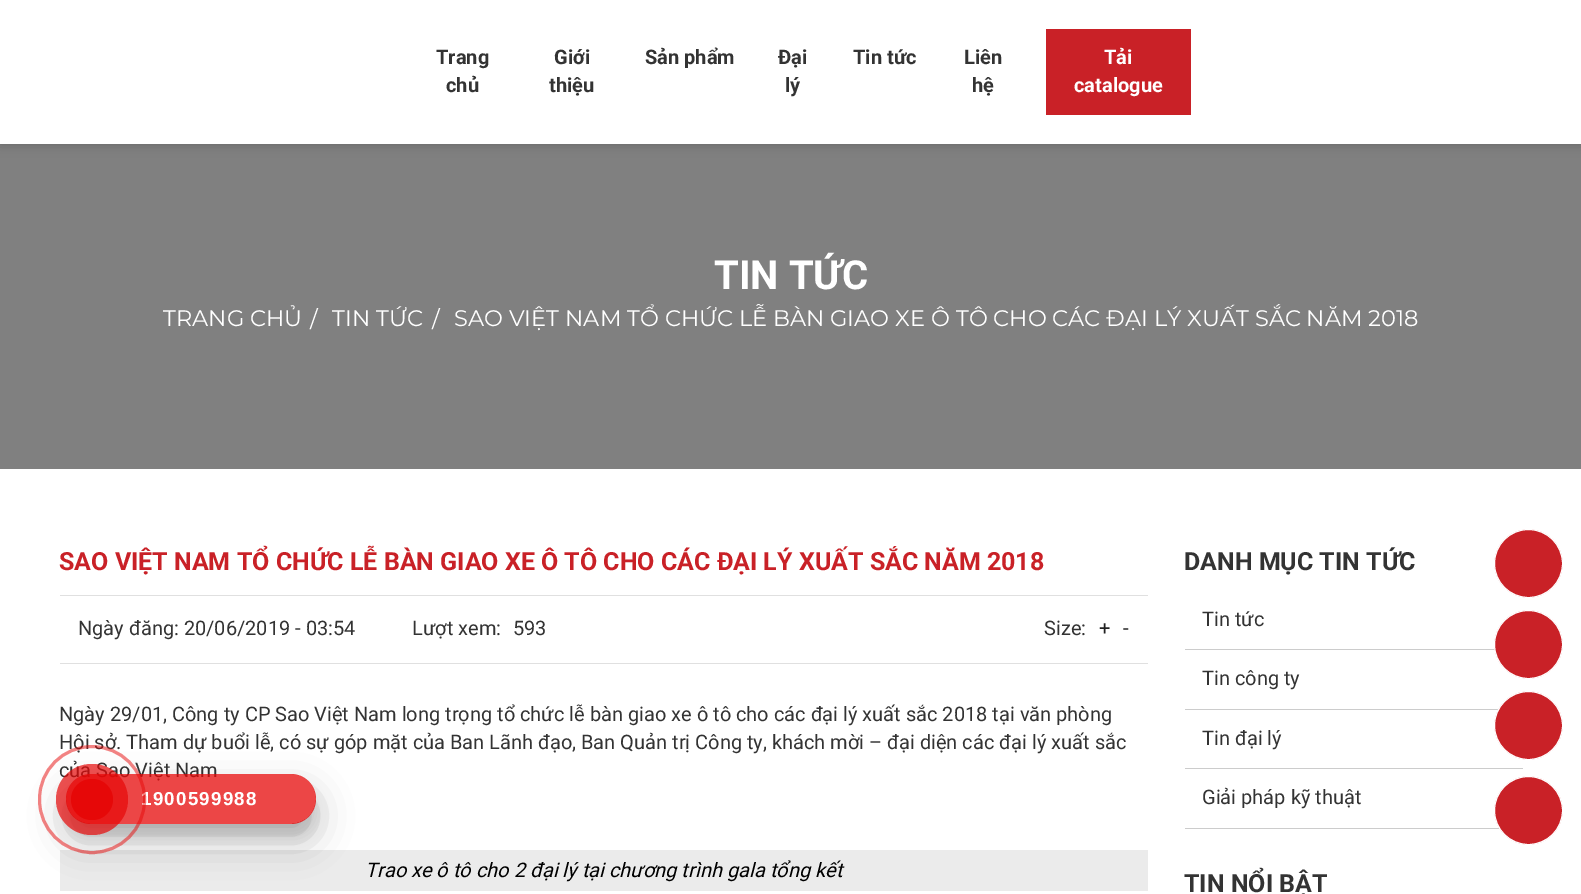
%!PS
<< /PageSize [1581 894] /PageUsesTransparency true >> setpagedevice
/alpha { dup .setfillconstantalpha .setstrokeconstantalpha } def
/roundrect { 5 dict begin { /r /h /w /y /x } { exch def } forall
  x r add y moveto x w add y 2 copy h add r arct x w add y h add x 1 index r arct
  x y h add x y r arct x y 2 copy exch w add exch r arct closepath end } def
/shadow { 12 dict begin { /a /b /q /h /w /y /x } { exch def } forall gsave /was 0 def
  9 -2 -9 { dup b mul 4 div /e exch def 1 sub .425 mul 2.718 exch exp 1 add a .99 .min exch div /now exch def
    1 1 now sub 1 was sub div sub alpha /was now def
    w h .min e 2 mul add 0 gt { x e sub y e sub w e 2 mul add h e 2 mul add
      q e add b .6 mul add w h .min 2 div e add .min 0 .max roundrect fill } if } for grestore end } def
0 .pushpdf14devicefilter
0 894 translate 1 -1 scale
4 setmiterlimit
1 setgray
0 0 1581 894 rectfill
0.502 setgray
0 144 1581 325 rectfill
0 setgray
0 0 1581 144 0 6 0.2 shadow
1 setgray
0 0 1581 144 rectfill
/Roboto-Bold [20 0 0 -20 0 0] selectfont
0.2 setgray
436 64 moveto (Trang) show
446 92 moveto (chủ) show
554 64 moveto (Giới) show
549 92 moveto (thiệu) show
645 64 moveto (Sản phẩm) show
778 64 moveto (Đại) show
785 92 moveto (lý) show
853 64 moveto (Tin tức) show
964 64 moveto (Liên) show
972 92 moveto (hệ) show
0.788 0.129 0.153 setrgbcolor
1046 29 145 86 rectfill
1 setgray
1104 64 moveto (Tải) show
1074 92 moveto (catalogue) show
/Roboto-Bold [40 0 0 -40 0 0] selectfont
714 289 moveto (TIN TỨC) show
/Montserrat-Regular [22.5 0 0 -22.5 0 0] selectfont
163 326 moveto (TRANG CHỦ) show
310 327 moveto (/) show
332 326 moveto (TIN TỨC) show
432 327 moveto (/) show
454 326 moveto (SAO VIỆT NAM TỔ CHỨC LỄ BÀN GIAO XE Ô TÔ CHO CÁC ĐẠI LÝ XUẤT SẮC NĂM 2018) show
/Roboto-Bold [25 0 0 -25 0 0] selectfont
0.788 0.129 0.153 setrgbcolor
59 570 moveto (SAO VIỆT NAM TỔ CHỨC LỄ BÀN GIAO XE Ô TÔ CHO CÁC ĐẠI LÝ XUẤT SẮC NĂM 2018) show
0.878 setgray
60 595 1088 1 rectfill
60 663 1088 1 rectfill
/Roboto-Regular [20 0 0 -20 0 0] selectfont
0.2 setgray
78 635 moveto (Ngày đăng: 20/06/2019 - 03:54) show
412 635 moveto (Lượt xem:) show
513 635 moveto (593) show
1044 635 moveto (Size:) show
0.129 setgray
1099 635 moveto (+) show
1123 635 moveto (-) show
0.2 setgray
59 721 moveto (Ngày 29/01, Công ty CP Sao Việt Nam long trọng tổ chức lễ bàn giao xe ô tô cho các đại lý xuất sắc 2018 tại văn phòng) show
59 749 moveto (Hội sở. Tham dự buổi lễ, có sự góp mặt của Ban Lãnh đạo, Ban Quản trị Công ty, khách mời – đại diện các đại lý xuất sắc) show
59 777 moveto (của Sao Việt Nam) show
0.922 setgray
60 850 1088 41 rectfill
/Roboto-Italic [20 0 0 -20 0 0] selectfont
0 setgray
365 877 moveto (Trao xe ô tô cho 2 đại lý tại chương trình gala tổng kết) show
/Roboto-Bold [25 0 0 -25 0 0] selectfont
0.2 setgray
1184 570 moveto (DANH MỤC TIN TỨC) show
0.8 setgray
1185 649 310 1 rectfill
/Roboto-Regular [20 0 0 -20 0 0] selectfont
0.2 setgray
1202 626 moveto (Tin tức) show
0.8 setgray
1185 709 314 1 rectfill
0.2 setgray
1202 685 moveto (Tin công ty) show
0.8 setgray
1185 768 338 1 rectfill
0.2 setgray
1202 745 moveto (Tin đại lý) show
0.8 setgray
1185 828 315 1 rectfill
0.2 setgray
1202 804 moveto (Giải pháp kỹ thuật) show
/Roboto-Bold [25 0 0 -25 0 0] selectfont
1184 892 moveto (TIN NỔI BẬT) show
0.788 0.129 0.153 setrgbcolor
newpath 1528.5 563.5 34 0 360 arc closepath gsave fill grestore
1 setgray
stroke
0.788 0.129 0.153 setrgbcolor
newpath 1528.5 644.5 34 0 360 arc closepath gsave fill grestore
1 setgray
stroke
0.788 0.129 0.153 setrgbcolor
newpath 1528.5 725.5 34 0 360 arc closepath gsave fill grestore
1 setgray
stroke
gsave
newpath 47 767 moveto 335 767 lineto 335 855 lineto 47 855 lineto closepath 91 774 moveto 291 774 lineto 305 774 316 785 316 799 curveto 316 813 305 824 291 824 curveto 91 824 lineto 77 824 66 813 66 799 curveto 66 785 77 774 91 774 curveto closepath eoclip newpath
0 setgray
66 786 250 50 25 6 0.1 shadow
grestore
gsave
newpath 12 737 moveto 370 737 lineto 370 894 lineto 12 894 lineto closepath 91 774 moveto 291 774 lineto 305 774 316 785 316 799 curveto 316 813 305 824 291 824 curveto 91 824 lineto 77 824 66 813 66 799 curveto 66 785 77 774 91 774 curveto closepath eoclip newpath
0 setgray
66 791 250 50 25 17.5 0.25 shadow
grestore
0.75 alpha
0.902 0.031 0.031 setrgbcolor
66 774 250 50 25 roundrect fill
/LiberationSans-Bold [18.75 0 0 -18.75 0 0] selectfont
1 alpha
1 setgray
141 805 moveto 1.25 0 (1900599988) ashow
0.5 alpha
0.902 0.031 0.031 setrgbcolor
3 setlinewidth
39.5 746.5 105 106 52.5 roundrect stroke
0.7 alpha
56 764 72 71 35.5 roundrect fill
1 alpha
71 779 42 41 20.5 roundrect fill
0.788 0.129 0.153 setrgbcolor
newpath 1528.5 810.5 34 0 360 arc closepath gsave fill grestore
1 setgray
1 setlinewidth
stroke
.poppdf14devicefilter showpage
